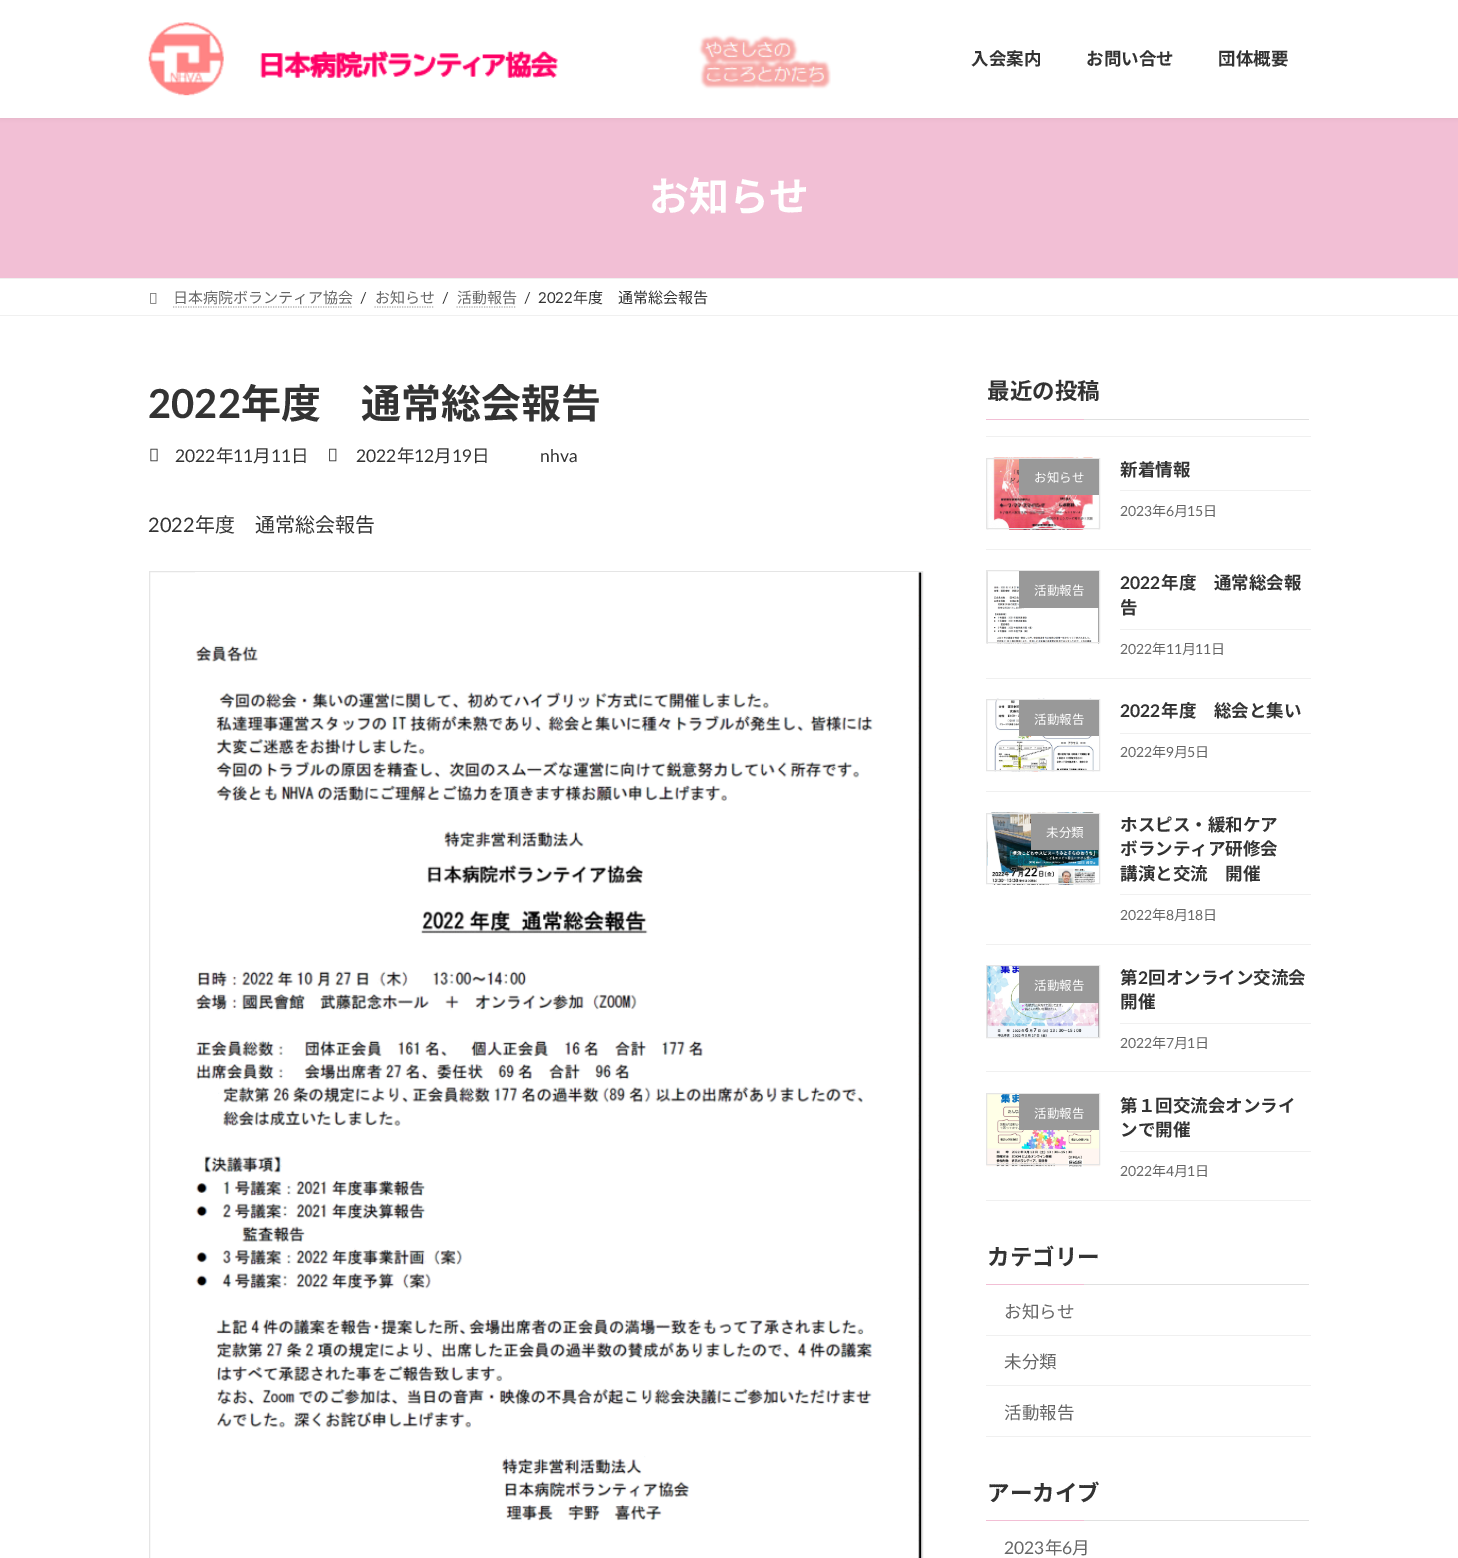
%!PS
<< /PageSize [1458 1558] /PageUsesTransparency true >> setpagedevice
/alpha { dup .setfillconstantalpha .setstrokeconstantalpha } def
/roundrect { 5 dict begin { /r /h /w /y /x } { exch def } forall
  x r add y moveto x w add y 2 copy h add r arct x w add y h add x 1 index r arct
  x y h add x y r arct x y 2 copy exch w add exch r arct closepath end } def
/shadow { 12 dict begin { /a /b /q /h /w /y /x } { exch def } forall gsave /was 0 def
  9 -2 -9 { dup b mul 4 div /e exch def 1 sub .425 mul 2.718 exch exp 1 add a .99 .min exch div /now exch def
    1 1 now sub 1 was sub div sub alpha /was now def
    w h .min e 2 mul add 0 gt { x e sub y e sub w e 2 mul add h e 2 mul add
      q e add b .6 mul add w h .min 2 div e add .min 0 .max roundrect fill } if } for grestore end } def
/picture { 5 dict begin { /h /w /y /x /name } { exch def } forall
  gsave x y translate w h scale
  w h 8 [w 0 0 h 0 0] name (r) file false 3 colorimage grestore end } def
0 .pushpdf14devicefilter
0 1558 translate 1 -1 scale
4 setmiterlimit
1 setgray
0 0 1458 1558 rectfill
0.949 0.749 0.835 setrgbcolor
0 118 1458 160 rectfill
0 setgray
0 1 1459 118 0 2 0.05 shadow
1 setgray
0 0 1458 118 rectfill
(img1.rgb) 148 22 683 74 picture
/NotoSansJP-Bold [17.5 0 0 -17.5 0 0] selectfont
0.2 setgray
971 65 moveto (入会案内) show
1086 65 moveto (お問い合せ) show
1218 65 moveto (団体概要) show
/NotoSansJP-Bold [40 0 0 -40 0 0] selectfont
1 setgray
649 211 moveto (お知らせ) show
0.941 setgray
0 278 1458 1 rectfill
0 315 1458 1 rectfill
(img2.rgb) 150 293 7 11 picture
/NotoSansJP-Regular [15 0 0 -15 0 0] selectfont
0.4 setgray
173 303 moveto (日本病院ボランティア協会) show
0.702 setgray
1.2 setlinewidth
[1.25 1.25] 0 setdash
newpath 173 307 moveto 353 307 lineto stroke
/Lato-Regular [15 0 0 -15 0 0] selectfont
0.2 setgray
360 303 moveto (/) show
/NotoSansJP-Regular [15 0 0 -15 0 0] selectfont
0.4 setgray
375 303 moveto (お知らせ) show
0.702 setgray
newpath 374.5 307 moveto 434.5 307 lineto stroke
/Lato-Regular [15 0 0 -15 0 0] selectfont
0.2 setgray
442 303 moveto (/) show
/NotoSansJP-Regular [15 0 0 -15 0 0] selectfont
0.4 setgray
457 303 moveto (活動報告) show
0.702 setgray
newpath 456.5 307 moveto 516.5 307 lineto stroke
/Lato-Regular [15 0 0 -15 0 0] selectfont
0.2 setgray
524 303 moveto (/) show
538 303 moveto (2022) show
/NotoSansJP-Regular [15 0 0 -15 0 0] selectfont
573 303 moveto (年度　通常総会報告) show
/Lato-Bold [40 0 0 -40 0 0] selectfont
148 418 moveto (2022) show
/NotoSansJP-Bold [40 0 0 -40 0 0] selectfont
241 418 moveto (年度　通常総会報告) show
(img3.rgb) 150 448 8 14 picture
/Lato-Regular [17.5 0 0 -17.5 0 0] selectfont
175 462 moveto (2022) show
/NotoSansJP-Regular [17.5 0 0 -17.5 0 0] selectfont
216 462 moveto (年) show
/Lato-Regular [17.5 0 0 -17.5 0 0] selectfont
233 462 moveto (11) show
/NotoSansJP-Regular [17.5 0 0 -17.5 0 0] selectfont
253 462 moveto (月) show
/Lato-Regular [17.5 0 0 -17.5 0 0] selectfont
271 462 moveto (11) show
/NotoSansJP-Regular [17.5 0 0 -17.5 0 0] selectfont
291 462 moveto (日) show
(img4.rgb) 329 448 8 14 picture
/Lato-Regular [17.5 0 0 -17.5 0 0] selectfont
356 462 moveto (2022) show
/NotoSansJP-Regular [17.5 0 0 -17.5 0 0] selectfont
397 462 moveto (年) show
/Lato-Regular [17.5 0 0 -17.5 0 0] selectfont
414 462 moveto (12) show
/NotoSansJP-Regular [17.5 0 0 -17.5 0 0] selectfont
434 462 moveto (月) show
/Lato-Regular [17.5 0 0 -17.5 0 0] selectfont
452 462 moveto (19) show
/NotoSansJP-Regular [17.5 0 0 -17.5 0 0] selectfont
472 462 moveto (日) show
/Lato-Regular [17.5 0 0 -17.5 0 0] selectfont
540 462 moveto (nhva) show
/Lato-Regular [20 0 0 -20 0 0] selectfont
148 532 moveto (2022) show
/NotoSansJP-Regular [20 0 0 -20 0 0] selectfont
195 532 moveto (年度　通常総会報告) show
0.898 setgray
1 setlinewidth
[] 0 setdash
149.5 571.5 773 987 rectstroke
(img5.rgb) 195 572 727 986 picture
0.878 setgray
1084 419 225 1 rectfill
/NotoSansJP-Bold [22.5 0 0 -22.5 0 0] selectfont
0.2 setgray
987 399 moveto (最近の投稿) show
0.949 0.749 0.835 setrgbcolor
986 419 98 1 rectfill
0.941 setgray
986 436 325 1 rectfill
986 549 325 1 rectfill
(img6.rgb) 987 457 113 73 picture
0.898 setgray
986.5 458.5 113 70 rectstroke
0.6 setgray
1019 459 80 36 rectfill
/NotoSansJP-Regular [12.5 0 0 -12.5 0 0] selectfont
1 setgray
1034 482 moveto (お知らせ) show
0.941 setgray
1120 490 191 1 rectfill
/NotoSansJP-Bold [17.5 0 0 -17.5 0 0] selectfont
0.2 setgray
1120 476 moveto (新着情報) show
/Lato-Regular [14 0 0 -14 0 0] selectfont
0.4 setgray
1120 516 moveto (2023) show
/NotoSansJP-Regular [14 0 0 -14 0 0] selectfont
1152 516 moveto (年) show
/Lato-Regular [14 0 0 -14 0 0] selectfont
1166 516 moveto (6) show
/NotoSansJP-Regular [14 0 0 -14 0 0] selectfont
1174 516 moveto (月) show
/Lato-Regular [14 0 0 -14 0 0] selectfont
1187 516 moveto (15) show
/NotoSansJP-Regular [14 0 0 -14 0 0] selectfont
1203 516 moveto (日) show
0.941 setgray
986 678 325 1 rectfill
(img7.rgb) 986 571 113 73 picture
0.898 setgray
986.5 570.5 113 72 rectstroke
0.6 setgray
1019 571 80 37 rectfill
/NotoSansJP-Regular [12.5 0 0 -12.5 0 0] selectfont
1 setgray
1034 595 moveto (活動報告) show
0.941 setgray
1120 629 191 1 rectfill
/Lato-Bold [17.5 0 0 -17.5 0 0] selectfont
0.2 setgray
1120 589 moveto (2022) show
/NotoSansJP-Bold [17.5 0 0 -17.5 0 0] selectfont
1161 589 moveto (年度　通常総会報) show
1120 614 moveto (告) show
/Lato-Regular [14 0 0 -14 0 0] selectfont
0.4 setgray
1120 654 moveto (2022) show
/NotoSansJP-Regular [14 0 0 -14 0 0] selectfont
1152 654 moveto (年) show
/Lato-Regular [14 0 0 -14 0 0] selectfont
1166 654 moveto (11) show
/NotoSansJP-Regular [14 0 0 -14 0 0] selectfont
1182 654 moveto (月) show
/Lato-Regular [14 0 0 -14 0 0] selectfont
1195 654 moveto (11) show
/NotoSansJP-Regular [14 0 0 -14 0 0] selectfont
1211 654 moveto (日) show
0.941 setgray
986 791 325 1 rectfill
(img8.rgb) 994 698 100 74 picture
0.898 setgray
986.5 699.5 113 71 rectstroke
0.6 setgray
1019 700 80 36 rectfill
/NotoSansJP-Regular [12.5 0 0 -12.5 0 0] selectfont
1 setgray
1034 724 moveto (活動報告) show
0.941 setgray
1120 733 191 1 rectfill
/Lato-Bold [17.5 0 0 -17.5 0 0] selectfont
0.2 setgray
1120 717 moveto (2022) show
/NotoSansJP-Bold [17.5 0 0 -17.5 0 0] selectfont
1161 717 moveto (年度　総会と集い) show
/Lato-Regular [14 0 0 -14 0 0] selectfont
0.4 setgray
1120 757 moveto (2022) show
/NotoSansJP-Regular [14 0 0 -14 0 0] selectfont
1152 757 moveto (年) show
/Lato-Regular [14 0 0 -14 0 0] selectfont
1166 757 moveto (9) show
/NotoSansJP-Regular [14 0 0 -14 0 0] selectfont
1174 757 moveto (月) show
/Lato-Regular [14 0 0 -14 0 0] selectfont
1187 757 moveto (5) show
/NotoSansJP-Regular [14 0 0 -14 0 0] selectfont
1195 757 moveto (日) show
0.941 setgray
986 944 325 1 rectfill
(img9.rgb) 986 812 113 73 picture
0.898 setgray
986.5 813.5 113 70 rectstroke
0.6 setgray
1031 814 68 36 rectfill
/NotoSansJP-Regular [12.5 0 0 -12.5 0 0] selectfont
1 setgray
1046 837 moveto (未分類) show
0.941 setgray
1120 894 191 1 rectfill
/NotoSansJP-Bold [17.5 0 0 -17.5 0 0] selectfont
0.2 setgray
1120 831 moveto (ホスピス・緩和ケア) show
1120 855 moveto (ボランティア研修会) show
1120 880 moveto (講演と交流　開催) show
/Lato-Regular [14 0 0 -14 0 0] selectfont
0.4 setgray
1120 920 moveto (2022) show
/NotoSansJP-Regular [14 0 0 -14 0 0] selectfont
1152 920 moveto (年) show
/Lato-Regular [14 0 0 -14 0 0] selectfont
1166 920 moveto (8) show
/NotoSansJP-Regular [14 0 0 -14 0 0] selectfont
1174 920 moveto (月) show
/Lato-Regular [14 0 0 -14 0 0] selectfont
1187 920 moveto (18) show
/NotoSansJP-Regular [14 0 0 -14 0 0] selectfont
1203 920 moveto (日) show
0.941 setgray
986 1071 325 1 rectfill
(img10.rgb) 987 966 112 71 picture
0.898 setgray
986.5 965.5 113 72 rectstroke
0.6 setgray
1019 966 80 37 rectfill
/NotoSansJP-Regular [12.5 0 0 -12.5 0 0] selectfont
1 setgray
1034 990 moveto (活動報告) show
0.941 setgray
1120 1023 191 1 rectfill
/NotoSansJP-Bold [17.5 0 0 -17.5 0 0] selectfont
0.2 setgray
1120 984 moveto (第) show
/Lato-Bold [17.5 0 0 -17.5 0 0] selectfont
1138 984 moveto (2) show
/NotoSansJP-Bold [17.5 0 0 -17.5 0 0] selectfont
1148 984 moveto (回オンライン交流会) show
1120 1008 moveto (開催) show
/Lato-Regular [14 0 0 -14 0 0] selectfont
0.4 setgray
1120 1048 moveto (2022) show
/NotoSansJP-Regular [14 0 0 -14 0 0] selectfont
1152 1048 moveto (年) show
/Lato-Regular [14 0 0 -14 0 0] selectfont
1166 1048 moveto (7) show
/NotoSansJP-Regular [14 0 0 -14 0 0] selectfont
1174 1048 moveto (月) show
/Lato-Regular [14 0 0 -14 0 0] selectfont
1187 1048 moveto (1) show
/NotoSansJP-Regular [14 0 0 -14 0 0] selectfont
1195 1048 moveto (日) show
0.941 setgray
986 1200 325 1 rectfill
(img11.rgb) 986 1094 114 73 picture
0.898 setgray
986.5 1093.5 113 71 rectstroke
0.6 setgray
1019 1094 80 36 rectfill
/NotoSansJP-Regular [12.5 0 0 -12.5 0 0] selectfont
1 setgray
1034 1118 moveto (活動報告) show
0.941 setgray
1120 1151 191 1 rectfill
/NotoSansJP-Bold [17.5 0 0 -17.5 0 0] selectfont
0.2 setgray
1120 1112 moveto (第１回交流会オンライ) show
1120 1136 moveto (ンで開催) show
/Lato-Regular [14 0 0 -14 0 0] selectfont
0.4 setgray
1120 1176 moveto (2022) show
/NotoSansJP-Regular [14 0 0 -14 0 0] selectfont
1152 1176 moveto (年) show
/Lato-Regular [14 0 0 -14 0 0] selectfont
1166 1176 moveto (4) show
/NotoSansJP-Regular [14 0 0 -14 0 0] selectfont
1174 1176 moveto (月) show
/Lato-Regular [14 0 0 -14 0 0] selectfont
1187 1176 moveto (1) show
/NotoSansJP-Regular [14 0 0 -14 0 0] selectfont
1195 1176 moveto (日) show
0.878 setgray
1084 1284 225 1 rectfill
/NotoSansJP-Bold [22.5 0 0 -22.5 0 0] selectfont
0.2 setgray
987 1265 moveto (カテゴリー) show
0.949 0.749 0.835 setrgbcolor
986 1284 98 1 rectfill
0.941 setgray
986 1335 325 1 rectfill
/NotoSansJP-Regular [17.5 0 0 -17.5 0 0] selectfont
0.4 setgray
1004 1318 moveto (お知らせ) show
0.941 setgray
986 1385 325 1 rectfill
0.4 setgray
1004 1368 moveto (未分類) show
0.941 setgray
986 1436 325 1 rectfill
0.4 setgray
1004 1419 moveto (活動報告) show
0.878 setgray
1084 1520 225 1 rectfill
/NotoSansJP-Bold [22.5 0 0 -22.5 0 0] selectfont
0.2 setgray
987 1501 moveto (アーカイブ) show
0.949 0.749 0.835 setrgbcolor
986 1520 98 1 rectfill
/Lato-Regular [17.5 0 0 -17.5 0 0] selectfont
0.4 setgray
1004 1554 moveto (2023) show
/NotoSansJP-Regular [17.5 0 0 -17.5 0 0] selectfont
1045 1554 moveto (年) show
/Lato-Regular [17.5 0 0 -17.5 0 0] selectfont
1062 1554 moveto (6) show
/NotoSansJP-Regular [17.5 0 0 -17.5 0 0] selectfont
1072 1554 moveto (月) show
.poppdf14devicefilter showpage
